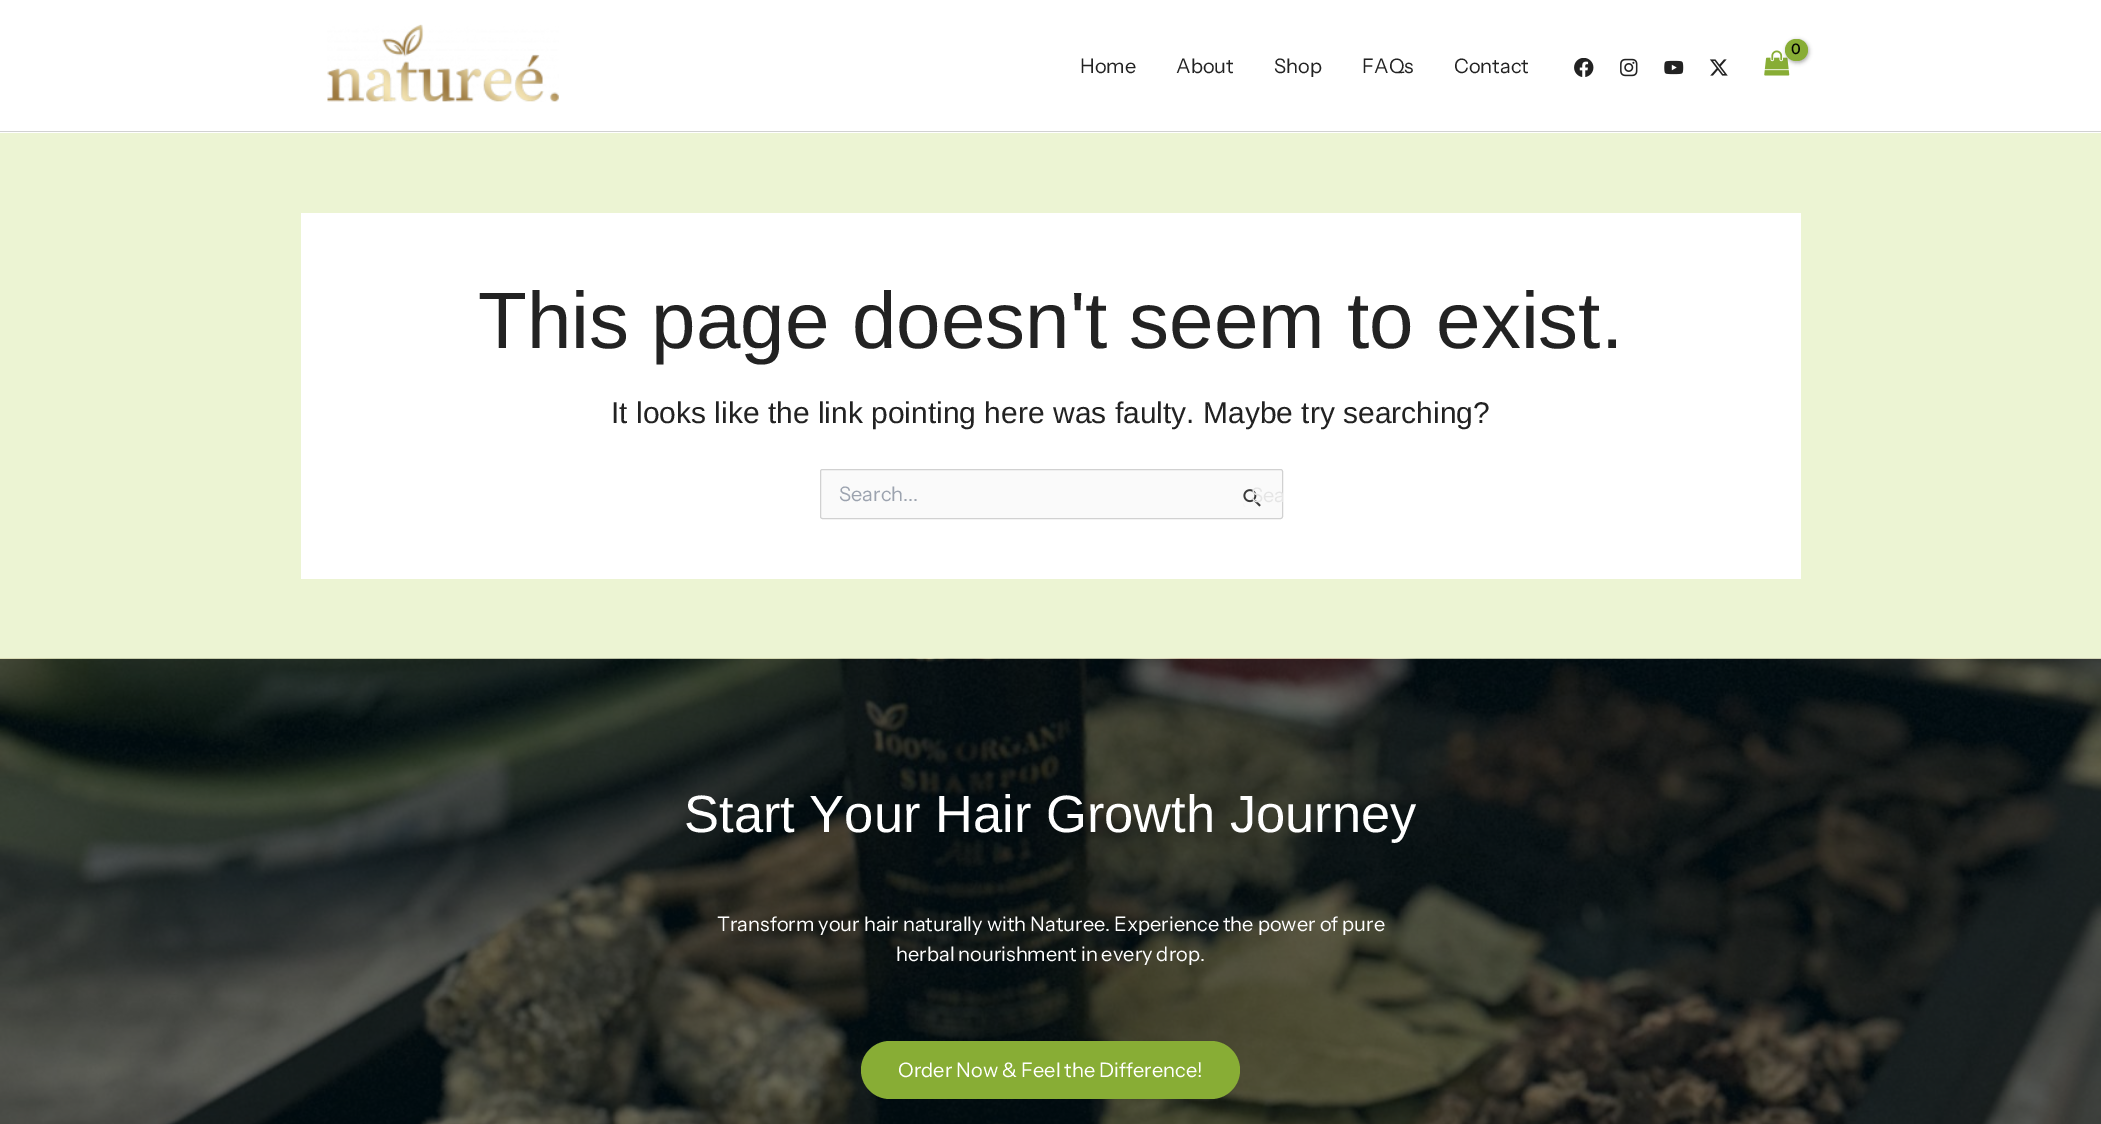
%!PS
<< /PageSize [2101 1124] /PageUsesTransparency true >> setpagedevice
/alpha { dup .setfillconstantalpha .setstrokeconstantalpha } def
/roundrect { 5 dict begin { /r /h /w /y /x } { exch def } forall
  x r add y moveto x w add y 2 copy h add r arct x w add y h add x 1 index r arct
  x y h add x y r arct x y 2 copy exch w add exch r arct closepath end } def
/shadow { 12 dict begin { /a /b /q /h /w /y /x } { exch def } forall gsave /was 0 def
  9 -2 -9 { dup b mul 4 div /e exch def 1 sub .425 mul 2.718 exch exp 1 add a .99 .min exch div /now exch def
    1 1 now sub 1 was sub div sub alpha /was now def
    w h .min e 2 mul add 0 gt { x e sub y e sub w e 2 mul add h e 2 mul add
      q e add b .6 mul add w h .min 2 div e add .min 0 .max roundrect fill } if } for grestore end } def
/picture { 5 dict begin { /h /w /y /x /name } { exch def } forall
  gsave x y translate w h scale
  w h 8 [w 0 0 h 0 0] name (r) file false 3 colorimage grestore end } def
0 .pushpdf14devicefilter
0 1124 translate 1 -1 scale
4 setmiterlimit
0.925 0.957 0.827 setrgbcolor
0 0 2101 1124 rectfill
1 setgray
0 0 2101 133 rectfill
0.82 setgray
0 131 2101 1 rectfill
(img1.rgb) 327 24 232 78 picture
(img2.rgb) 1764 50 26 26 picture
0 setgray
1786 40 23 23 11.5 2 0.3 shadow
0.533 0.678 0.208 setrgbcolor
1785 39 23 22 11 roundrect fill
/InstrumentSans-Bold [14 0 0 -14 0 0] selectfont
0 setgray
1791 54 moveto -1 0 (0) ashow
/InstrumentSans-Regular [20 0 0 -20 0 0] selectfont
0.133 setgray
1080 73 moveto (Home) show
1176 73 moveto (About) show
1274 73 moveto (Shop) show
1362 73 moveto (FAQs) show
1454 73 moveto (Contact) show
(img3.rgb) 1574 58 20 19 picture
(img4.rgb) 1620 58 18 19 picture
(img5.rgb) 1664 60 20 15 picture
(img6.rgb) 1709 59 19 17 picture
1 setgray
301 213 1500 366 rectfill
/LiberationSans-Regular [80 0 0 -80 0 0] selectfont
0.133 setgray
478 348 moveto (This page doesn't seem to exist.) show
/LiberationSans-Regular [30 0 0 -30 0 0] selectfont
611 423 moveto (It looks like the link pointing here was faulty. Maybe try searching?) show
0.98 setgray
820.5 469.5 462 49 2 roundrect gsave fill grestore
0.82 setgray
stroke
/InstrumentSans-Regular [20 0 0 -20 0 0] selectfont
0.612 0.639 0.686 setrgbcolor
839 501 moveto (Search...) show
(img7.rgb) 1243 489 18 18 picture
gsave
1226 469 57 52 2.5 roundrect clip newpath
0.898 setgray
1251 502 moveto (Sea) show
grestore
(img8.rgb) 0 658 2101 466 picture
/LiberationSans-Regular [52.5 0 0 -52.5 0 0] selectfont
1 setgray
684 832 moveto (Start Your Hair Growth Journey) show
/InstrumentSans-Regular [20 0 0 -20 0 0] selectfont
717 931 moveto (Transform your hair naturally with Naturee. Experience the power of pure) show
896 961 moveto (herbal nourishment in every drop.) show
0.533 0.678 0.208 setrgbcolor
861 1041 379 58 29 roundrect fill
1 setgray
898 1077 moveto (Order Now & Feel the Difference!) show
.poppdf14devicefilter showpage
